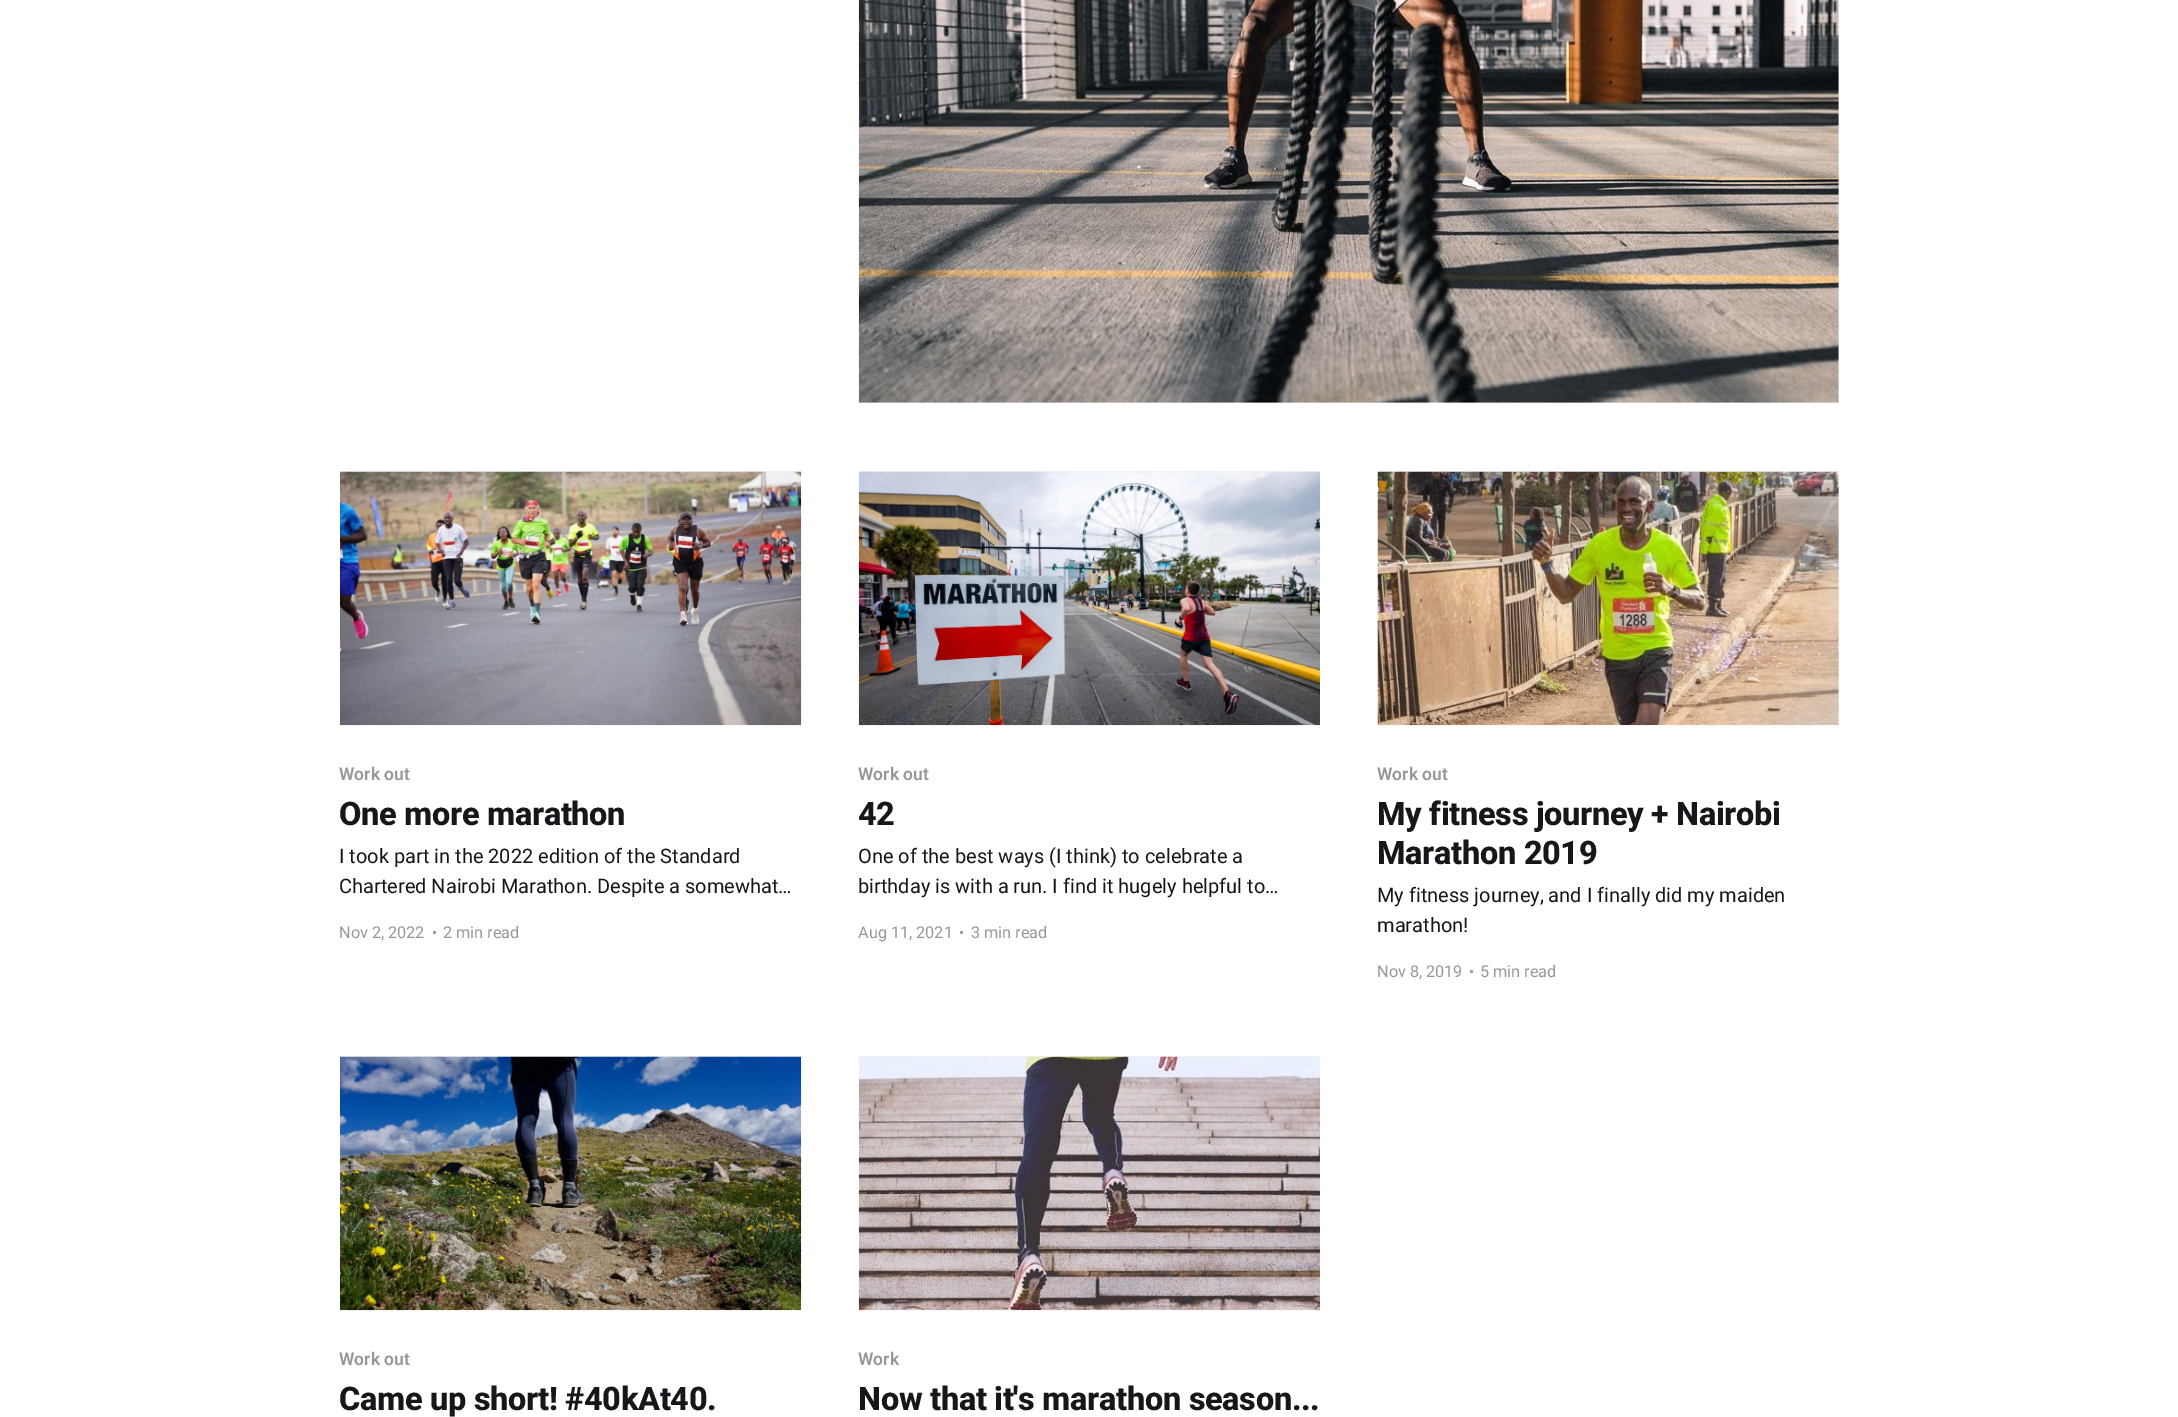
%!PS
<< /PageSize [2178 1417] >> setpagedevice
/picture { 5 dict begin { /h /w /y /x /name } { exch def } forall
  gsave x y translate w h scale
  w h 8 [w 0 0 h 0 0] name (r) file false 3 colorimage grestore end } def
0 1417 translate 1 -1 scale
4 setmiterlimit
1 setgray
0 0 2178 1417 rectfill
0.945 setgray
859 0 980 403 rectfill
(img1.rgb) 858 0 981 403 picture
340 471 461 1 rectfill
(img2.rgb) 340 471 462 255 picture
/Roboto-SemiBold [17.5 0 0 -17.5 0 0] selectfont
0.592 setgray
339 780 moveto (Work out) show
/Roboto-ExtraBold [32.5 0 0 -32.5 0 0] selectfont
0.082 0.09 0.102 setrgbcolor
339 825 moveto -0.3 0 (One more marathon) ashow
/Roboto-Regular [20 0 0 -20 0 0] selectfont
339 863 moveto (I took part in the 2022 edition of the Standard) show
339 893 moveto (Chartered Nairobi Marathon. Despite a somewhat…) show
/Roboto-Regular [16.25 0 0 -16.25 0 0] selectfont
0.592 setgray
339 938 moveto (Nov 2, 2022) show
newpath 434.5 932.5 1.5 0 360 arc closepath fill
443 938 moveto (2 min read) show
0.945 setgray
859 471 461 1 rectfill
(img3.rgb) 858 471 462 255 picture
/Roboto-SemiBold [17.5 0 0 -17.5 0 0] selectfont
0.592 setgray
858 780 moveto (Work out) show
/Roboto-ExtraBold [32.5 0 0 -32.5 0 0] selectfont
0.082 0.09 0.102 setrgbcolor
858 825 moveto -0.3 0 (42) ashow
/Roboto-Regular [20 0 0 -20 0 0] selectfont
858 863 moveto (One of the best ways \(I think\) to celebrate a) show
858 893 moveto (birthday is with a run. I find it hugely helpful to…) show
/Roboto-Regular [16.25 0 0 -16.25 0 0] selectfont
0.592 setgray
858 938 moveto (Aug 11, 2021) show
newpath 961.5 932.5 1.5 0 360 arc closepath fill
971 938 moveto (3 min read) show
0.945 setgray
1378 471 461 254 rectfill
(img4.rgb) 1377 471 462 255 picture
/Roboto-SemiBold [17.5 0 0 -17.5 0 0] selectfont
0.592 setgray
1377 780 moveto (Work out) show
/Roboto-ExtraBold [32.5 0 0 -32.5 0 0] selectfont
0.082 0.09 0.102 setrgbcolor
1377 825 moveto -0.3 0 (My fitness journey + Nairobi) ashow
1377 864 moveto -0.3 0 (Marathon 2019) ashow
/Roboto-Regular [20 0 0 -20 0 0] selectfont
1377 902 moveto (My fitness journey, and I finally did my maiden) show
1377 932 moveto (marathon!) show
/Roboto-Regular [16.25 0 0 -16.25 0 0] selectfont
0.592 setgray
1377 977 moveto (Nov 8, 2019) show
newpath 1471.5 971.5 1.5 0 360 arc closepath fill
1480 977 moveto (5 min read) show
0.945 setgray
340 1056 461 1 rectfill
(img5.rgb) 340 1056 462 255 picture
/Roboto-SemiBold [17.5 0 0 -17.5 0 0] selectfont
0.592 setgray
339 1365 moveto (Work out) show
/Roboto-ExtraBold [32.5 0 0 -32.5 0 0] selectfont
0.082 0.09 0.102 setrgbcolor
339 1410 moveto -0.3 0 (Came up short! #40kAt40.) ashow
0.945 setgray
859 1056 461 1 rectfill
(img6.rgb) 858 1056 462 255 picture
/Roboto-SemiBold [17.5 0 0 -17.5 0 0] selectfont
0.592 setgray
858 1365 moveto (Work) show
/Roboto-ExtraBold [32.5 0 0 -32.5 0 0] selectfont
0.082 0.09 0.102 setrgbcolor
858 1410 moveto -0.3 0 (Now that it's marathon season...) ashow
showpage
